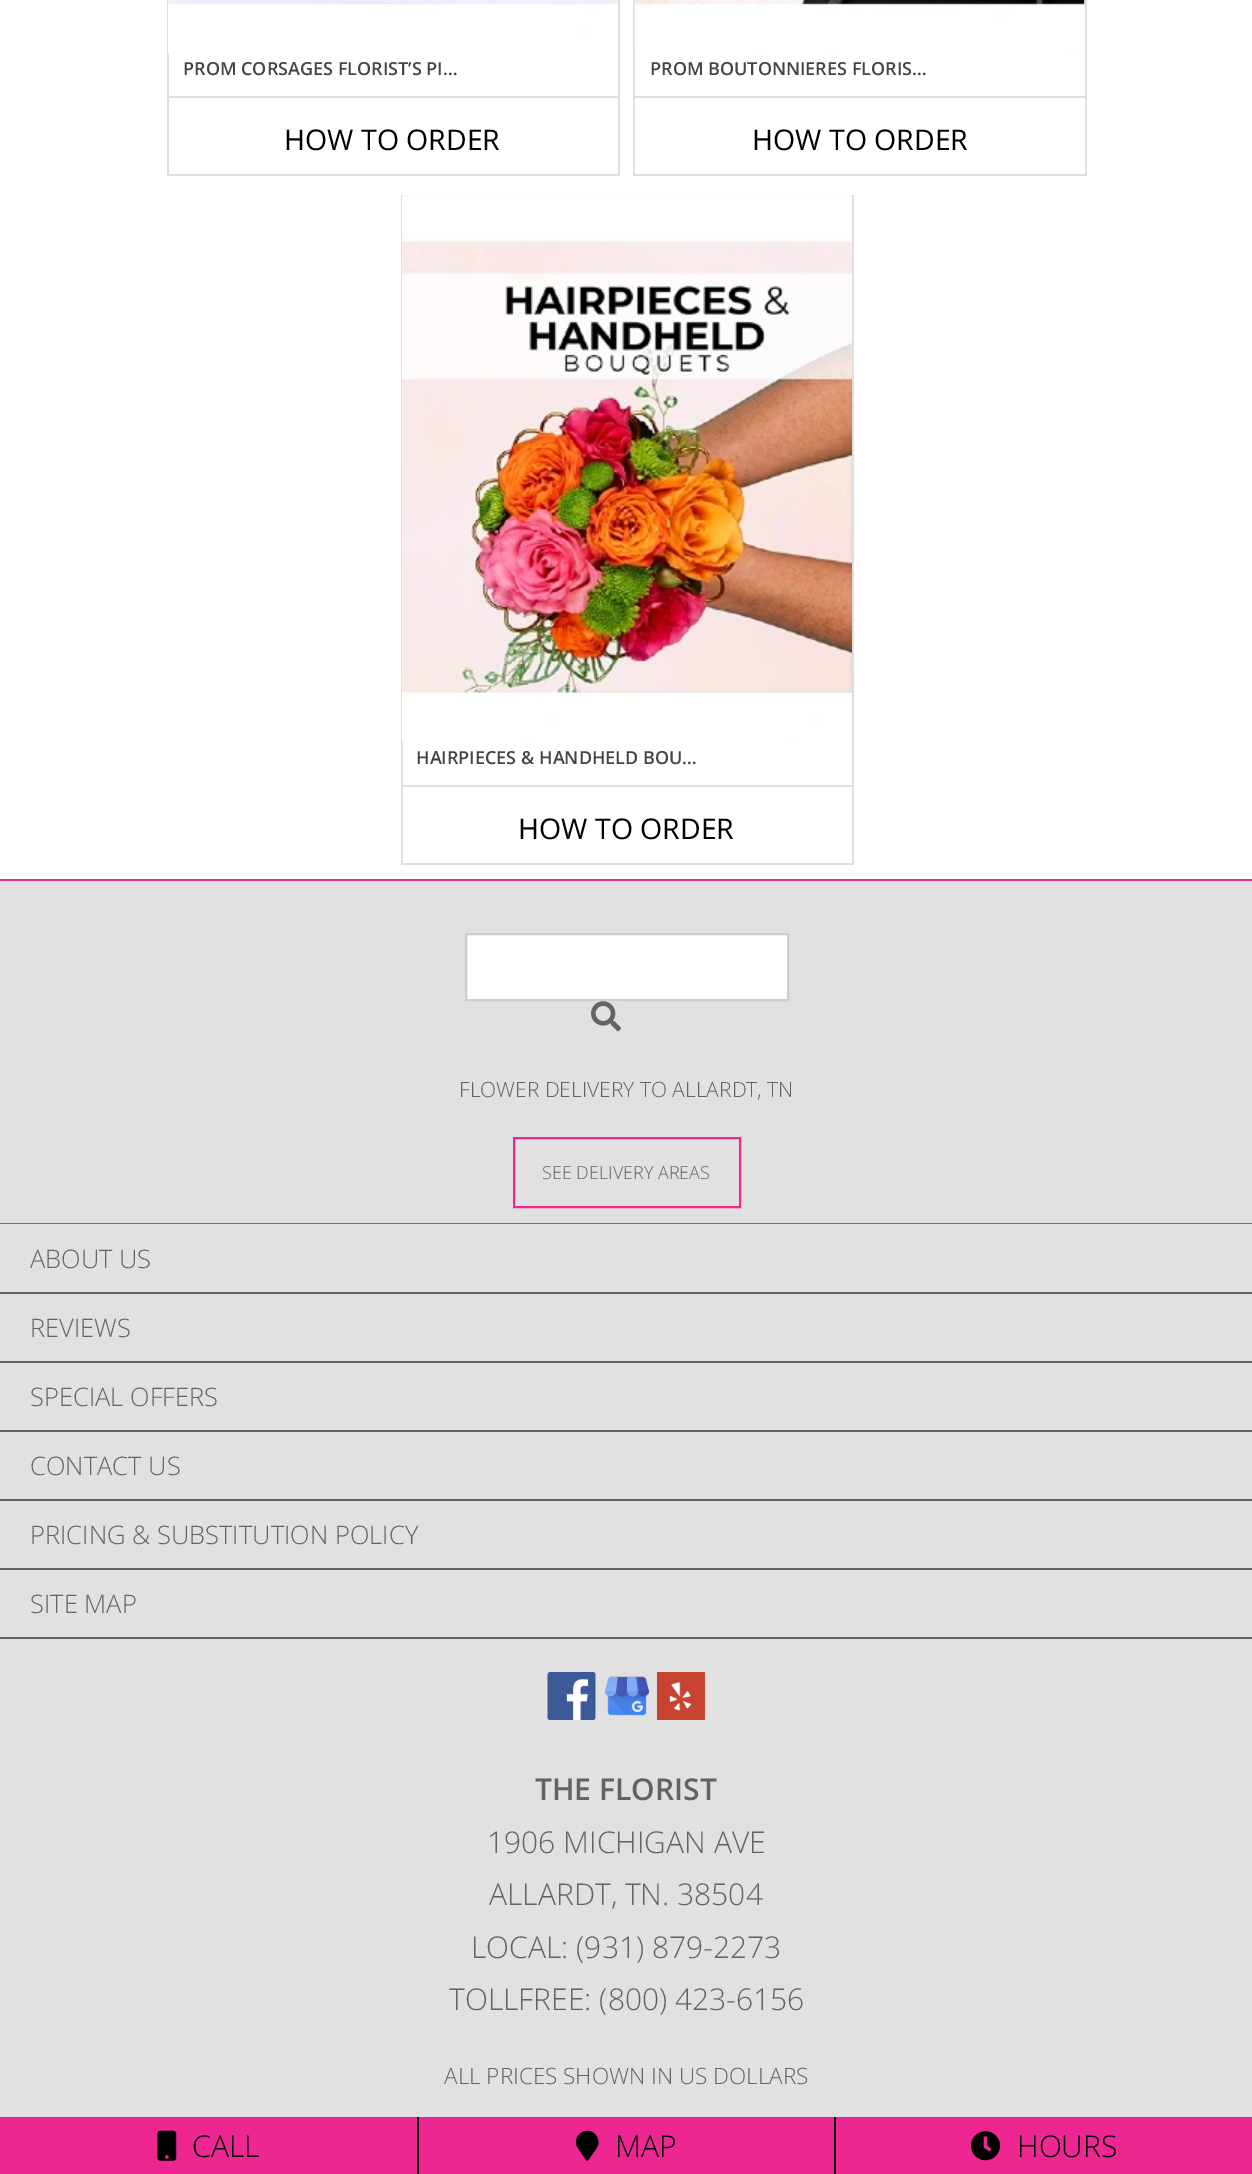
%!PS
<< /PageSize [1252 2174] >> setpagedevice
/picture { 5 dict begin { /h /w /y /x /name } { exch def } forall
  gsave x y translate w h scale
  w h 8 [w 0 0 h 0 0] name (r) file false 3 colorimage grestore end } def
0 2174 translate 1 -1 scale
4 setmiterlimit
1 setgray
0 0 1252 2174 rectfill
0.886 0.871 0.867 setrgbcolor
618 0 2 176 rectfill
167 174 453 2 rectfill
167 0 2 176 rectfill
(img1.rgb) 168 0 450 54 picture
/OpenSans-SemiBold [18 0 0 -18 0 0] selectfont
0.267 setgray
183 75 moveto (PROM CORSAGES FLORIST’S PI…) show
0.886 0.871 0.867 setrgbcolor
168 96 450 2 rectfill
/OpenSans-Regular [28.5 0 0 -28.5 0 0] selectfont
0 setgray
284 150 moveto (HOW TO ORDER) show
0.886 0.871 0.867 setrgbcolor
1085 0 2 176 rectfill
633 174 453 2 rectfill
633 0 2 176 rectfill
(img2.rgb) 634 0 451 54 picture
/OpenSans-SemiBold [18 0 0 -18 0 0] selectfont
0.267 setgray
650 75 moveto (PROM BOUTONNIERES FLORIS…) show
0.886 0.871 0.867 setrgbcolor
635 96 450 2 rectfill
/OpenSans-Regular [28.5 0 0 -28.5 0 0] selectfont
0 setgray
752 150 moveto (HOW TO ORDER) show
0.976 setgray
401 195 453 1 rectfill
0.886 0.871 0.867 setrgbcolor
852 195 2 669 rectfill
401 863 453 2 rectfill
401 195 2 669 rectfill
(img3.rgb) 402 196 450 546 picture
/OpenSans-SemiBold [18 0 0 -18 0 0] selectfont
0.267 setgray
416 764 moveto (HAIRPIECES & HANDHELD BOU…) show
0.886 0.871 0.867 setrgbcolor
402 785 450 2 rectfill
/OpenSans-Regular [28.5 0 0 -28.5 0 0] selectfont
0 setgray
518 839 moveto (HOW TO ORDER) show
0.882 setgray
0 881 1252 342 rectfill
0.929 0.149 0.569 setrgbcolor
0 879 1252 2 rectfill
0 1223 1252 1 rectfill
1 setgray
newpath 466 934 moveto 788 934 lineto 788 1000 lineto 466 1000 lineto closepath gsave fill grestore
0.8 setgray
2 setlinewidth
stroke
(img4.rgb) 591 1001 30 31 picture
/OpenSans-Light [21 0 0 -21 0 0] selectfont
0.388 setgray
459 1097 moveto (FLOWER DELIVERY TO ALLARDT, TN) show
0.929 0.149 0.569 setrgbcolor
514 1138 226 69 rectstroke
/OpenSans-Light [18 0 0 -18 0 0] selectfont
0.388 setgray
542 1179 moveto (SEE DELIVERY AREAS) show
0.882 setgray
0 1224 1252 893 rectfill
0.388 setgray
0 1292 1252 2 rectfill
/OpenSans-Light [25.5 0 0 -25.5 0 0] selectfont
30 1268 moveto (ABOUT US) show
0 1361 1252 2 rectfill
30 1337 moveto (REVIEWS) show
0 1430 1252 2 rectfill
30 1406 moveto (SPECIAL OFFERS) show
0 1499 1252 2 rectfill
30 1475 moveto (CONTACT US) show
0 1568 1252 2 rectfill
30 1544 moveto (PRICING & SUBSTITUTION POLICY) show
0 1637 1252 2 rectfill
30 1613 moveto (SITE MAP) show
(img5.rgb) 547 1672 49 48 picture
(img6.rgb) 604 1676 46 40 picture
(img7.rgb) 657 1672 48 48 picture
/OpenSans-SemiBold [30 0 0 -30 0 0] selectfont
535 1800 moveto (THE FLORIST) show
/OpenSans-Light [30 0 0 -30 0 0] selectfont
487 1853 moveto (1906 MICHIGAN AVE) show
489 1905 moveto (ALLARDT, TN. 38504) show
471 1958 moveto (LOCAL: \(931\) 879-2273) show
449 2010 moveto (TOLLFREE: \(800\) 423-6156) show
/OpenSans-Light [22.5 0 0 -22.5 0 0] selectfont
444 2084 moveto (ALL PRICES SHOWN IN US DOLLARS) show
0.929 0.149 0.569 setrgbcolor
0 2117 417 57 rectfill
(img8.rgb) 157 2130 20 31 picture
/OpenSans-Light [30 0 0 -30 0 0] selectfont
0 setgray
192 2157 moveto (CALL) show
0.929 0.149 0.569 setrgbcolor
419 2117 415 57 rectfill
0 setgray
417 2117 2 57 rectfill
(img9.rgb) 576 2130 23 31 picture
615 2157 moveto (MAP) show
0.929 0.149 0.569 setrgbcolor
836 2117 416 57 rectfill
0 setgray
834 2117 2 57 rectfill
(img10.rgb) 971 2131 29 30 picture
1017 2157 moveto (HOURS) show
showpage
